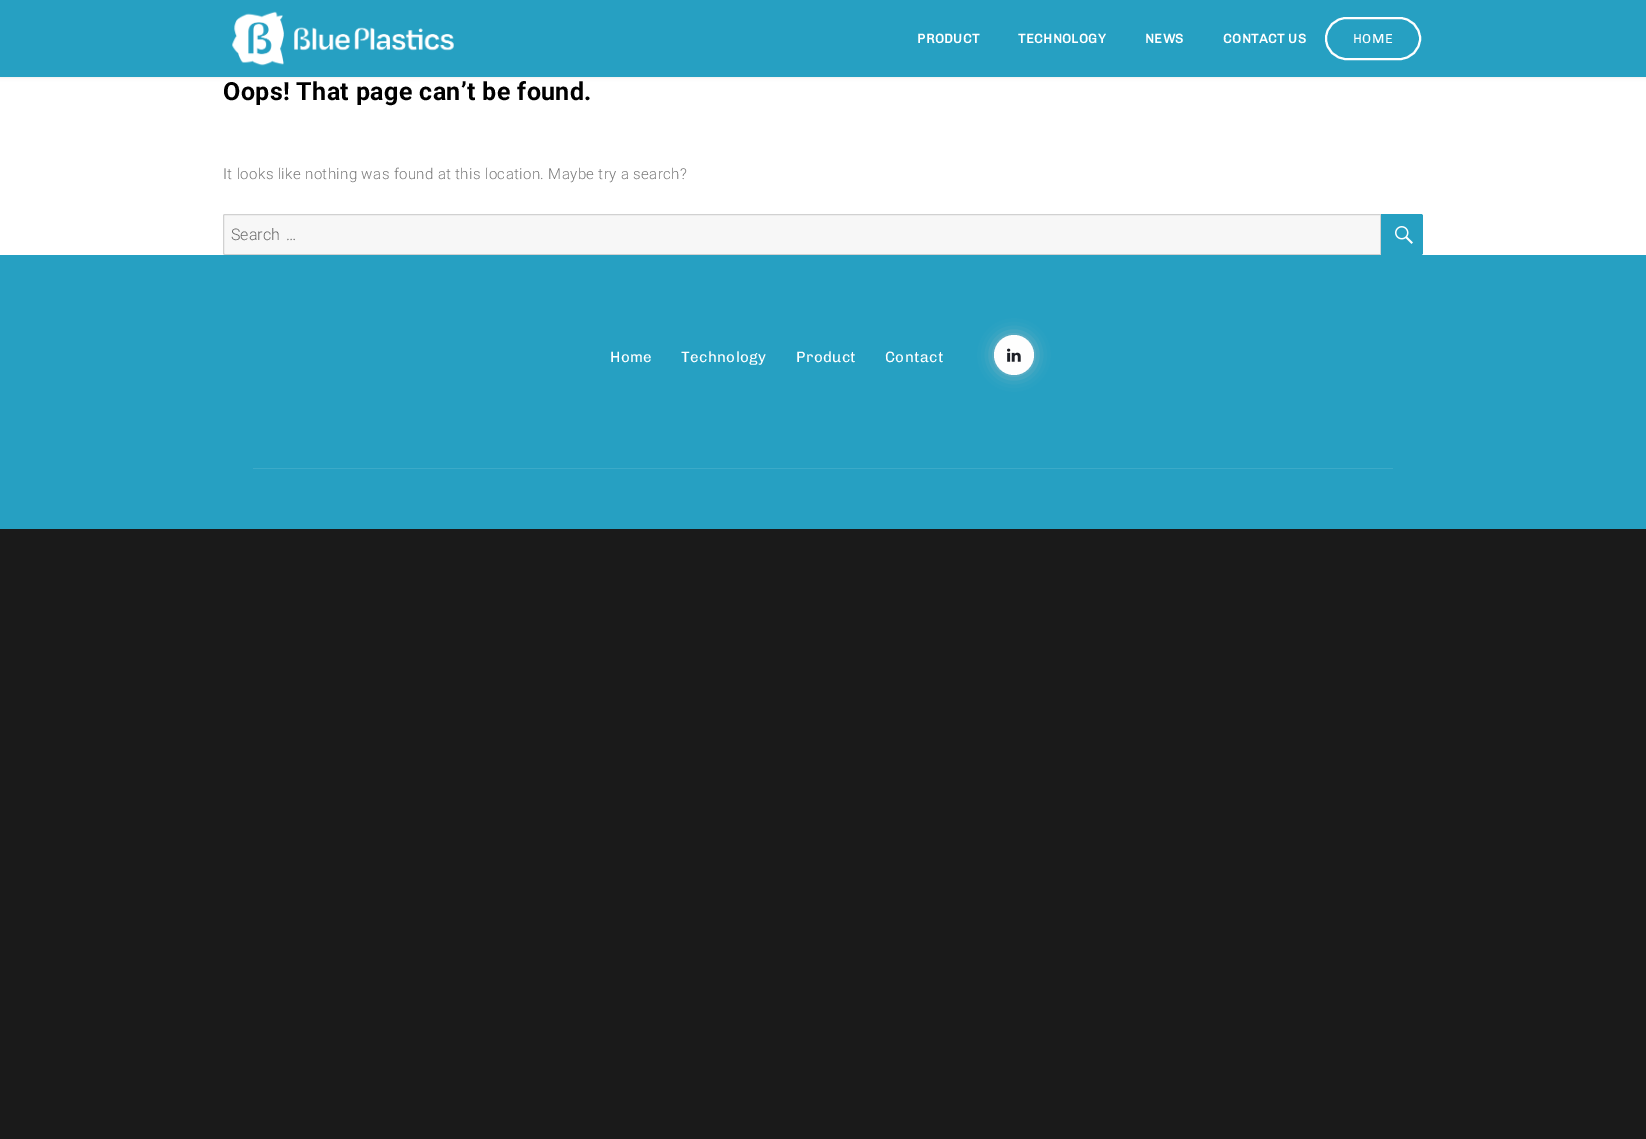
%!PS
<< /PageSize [1646 1139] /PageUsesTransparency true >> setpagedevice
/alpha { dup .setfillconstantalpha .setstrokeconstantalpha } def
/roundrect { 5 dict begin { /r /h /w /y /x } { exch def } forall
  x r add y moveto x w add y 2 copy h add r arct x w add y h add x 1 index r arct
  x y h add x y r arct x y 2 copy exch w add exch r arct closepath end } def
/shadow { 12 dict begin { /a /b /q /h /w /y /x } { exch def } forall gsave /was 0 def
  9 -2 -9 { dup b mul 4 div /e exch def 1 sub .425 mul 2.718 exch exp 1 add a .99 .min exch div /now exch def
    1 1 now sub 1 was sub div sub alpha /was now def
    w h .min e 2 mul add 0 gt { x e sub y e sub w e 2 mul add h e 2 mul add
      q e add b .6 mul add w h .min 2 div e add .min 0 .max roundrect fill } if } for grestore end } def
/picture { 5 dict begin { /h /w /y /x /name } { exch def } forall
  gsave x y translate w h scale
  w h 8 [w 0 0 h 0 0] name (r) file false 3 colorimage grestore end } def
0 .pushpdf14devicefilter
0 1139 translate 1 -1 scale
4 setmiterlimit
0.102 setgray
0 0 1646 1139 rectfill
1 setgray
0 77 1646 178 rectfill
0 setgray
0 0 1646 77 0 2 0.1 shadow
0.149 0.627 0.761 setrgbcolor
0 0 1646 77 rectfill
(img1.rgb) 232 11 222 55 picture
/Chivo-Bold [13 0 0 -13 0 0] selectfont
1 setgray
917 43 moveto 0.38 0 (PRODUCT) ashow
1018 43 moveto 0.38 0 (TECHNOLOGY) ashow
1145 43 moveto 0.38 0 (NEWS) ashow
1223 43 moveto 0.38 0 (CONTACT US) ashow
2 setlinewidth
1326 18 94 41 20.5 roundrect stroke
/Chivo-Medium [13 0 0 -13 0 0] selectfont
1353 43 moveto 0.38 0 (HOME) ashow
/Roboto-Bold [25 0 0 -25 0 0] selectfont
0 setgray
223 100 moveto 0.38 0 (Oops! That page can’t be found.) ashow
/Roboto-Light [15 0 0 -15 0 0] selectfont
0.467 setgray
223 179 moveto 0.38 0 (It looks like nothing was found at this location. Maybe try a search?) ashow
0.969 setgray
newpath 225 214.5 moveto 1380.5 214.5 lineto 1380.5 254.5 lineto 225 254.5 lineto 224 254.5 223.5 254 223.5 253 curveto 223.5 216 lineto 223.5 215 224 214.5 225 214.5 curveto closepath gsave fill grestore
0.82 setgray
1 setlinewidth
stroke
/Roboto-Light [16 0 0 -16 0 0] selectfont
0.408 setgray
231 240 moveto 2 0 32 (Search …) widthshow
0.149 0.627 0.761 setrgbcolor
newpath 1381 214 moveto 1421 214 lineto 1422 214 1423 215 1423 216 curveto 1423 253 lineto 1423 254 1422 255 1421 255 curveto 1381 255 lineto closepath fill
(img2.rgb) 1395 226 18 18 picture
0 255 1646 274 rectfill
/Chivo-Medium [15 0 0 -15 0 0] selectfont
1 setgray
610 362 moveto 0.38 0 (Home) ashow
681 362 moveto 0.38 0 (Technology) ashow
796 362 moveto 0.38 0 (Product) ashow
885 362 moveto 0.38 0 (Contact) ashow
0.894 0.784 0.784 setrgbcolor
994 335 40 40 20 7.5 0.5 shadow
0.996 setgray
newpath 1014 355 20 0 360 arc closepath fill
(img3.rgb) 1007 348 14 14 picture
0.235 0.667 0.784 setrgbcolor
253 468 1140 1 rectfill
.poppdf14devicefilter showpage
